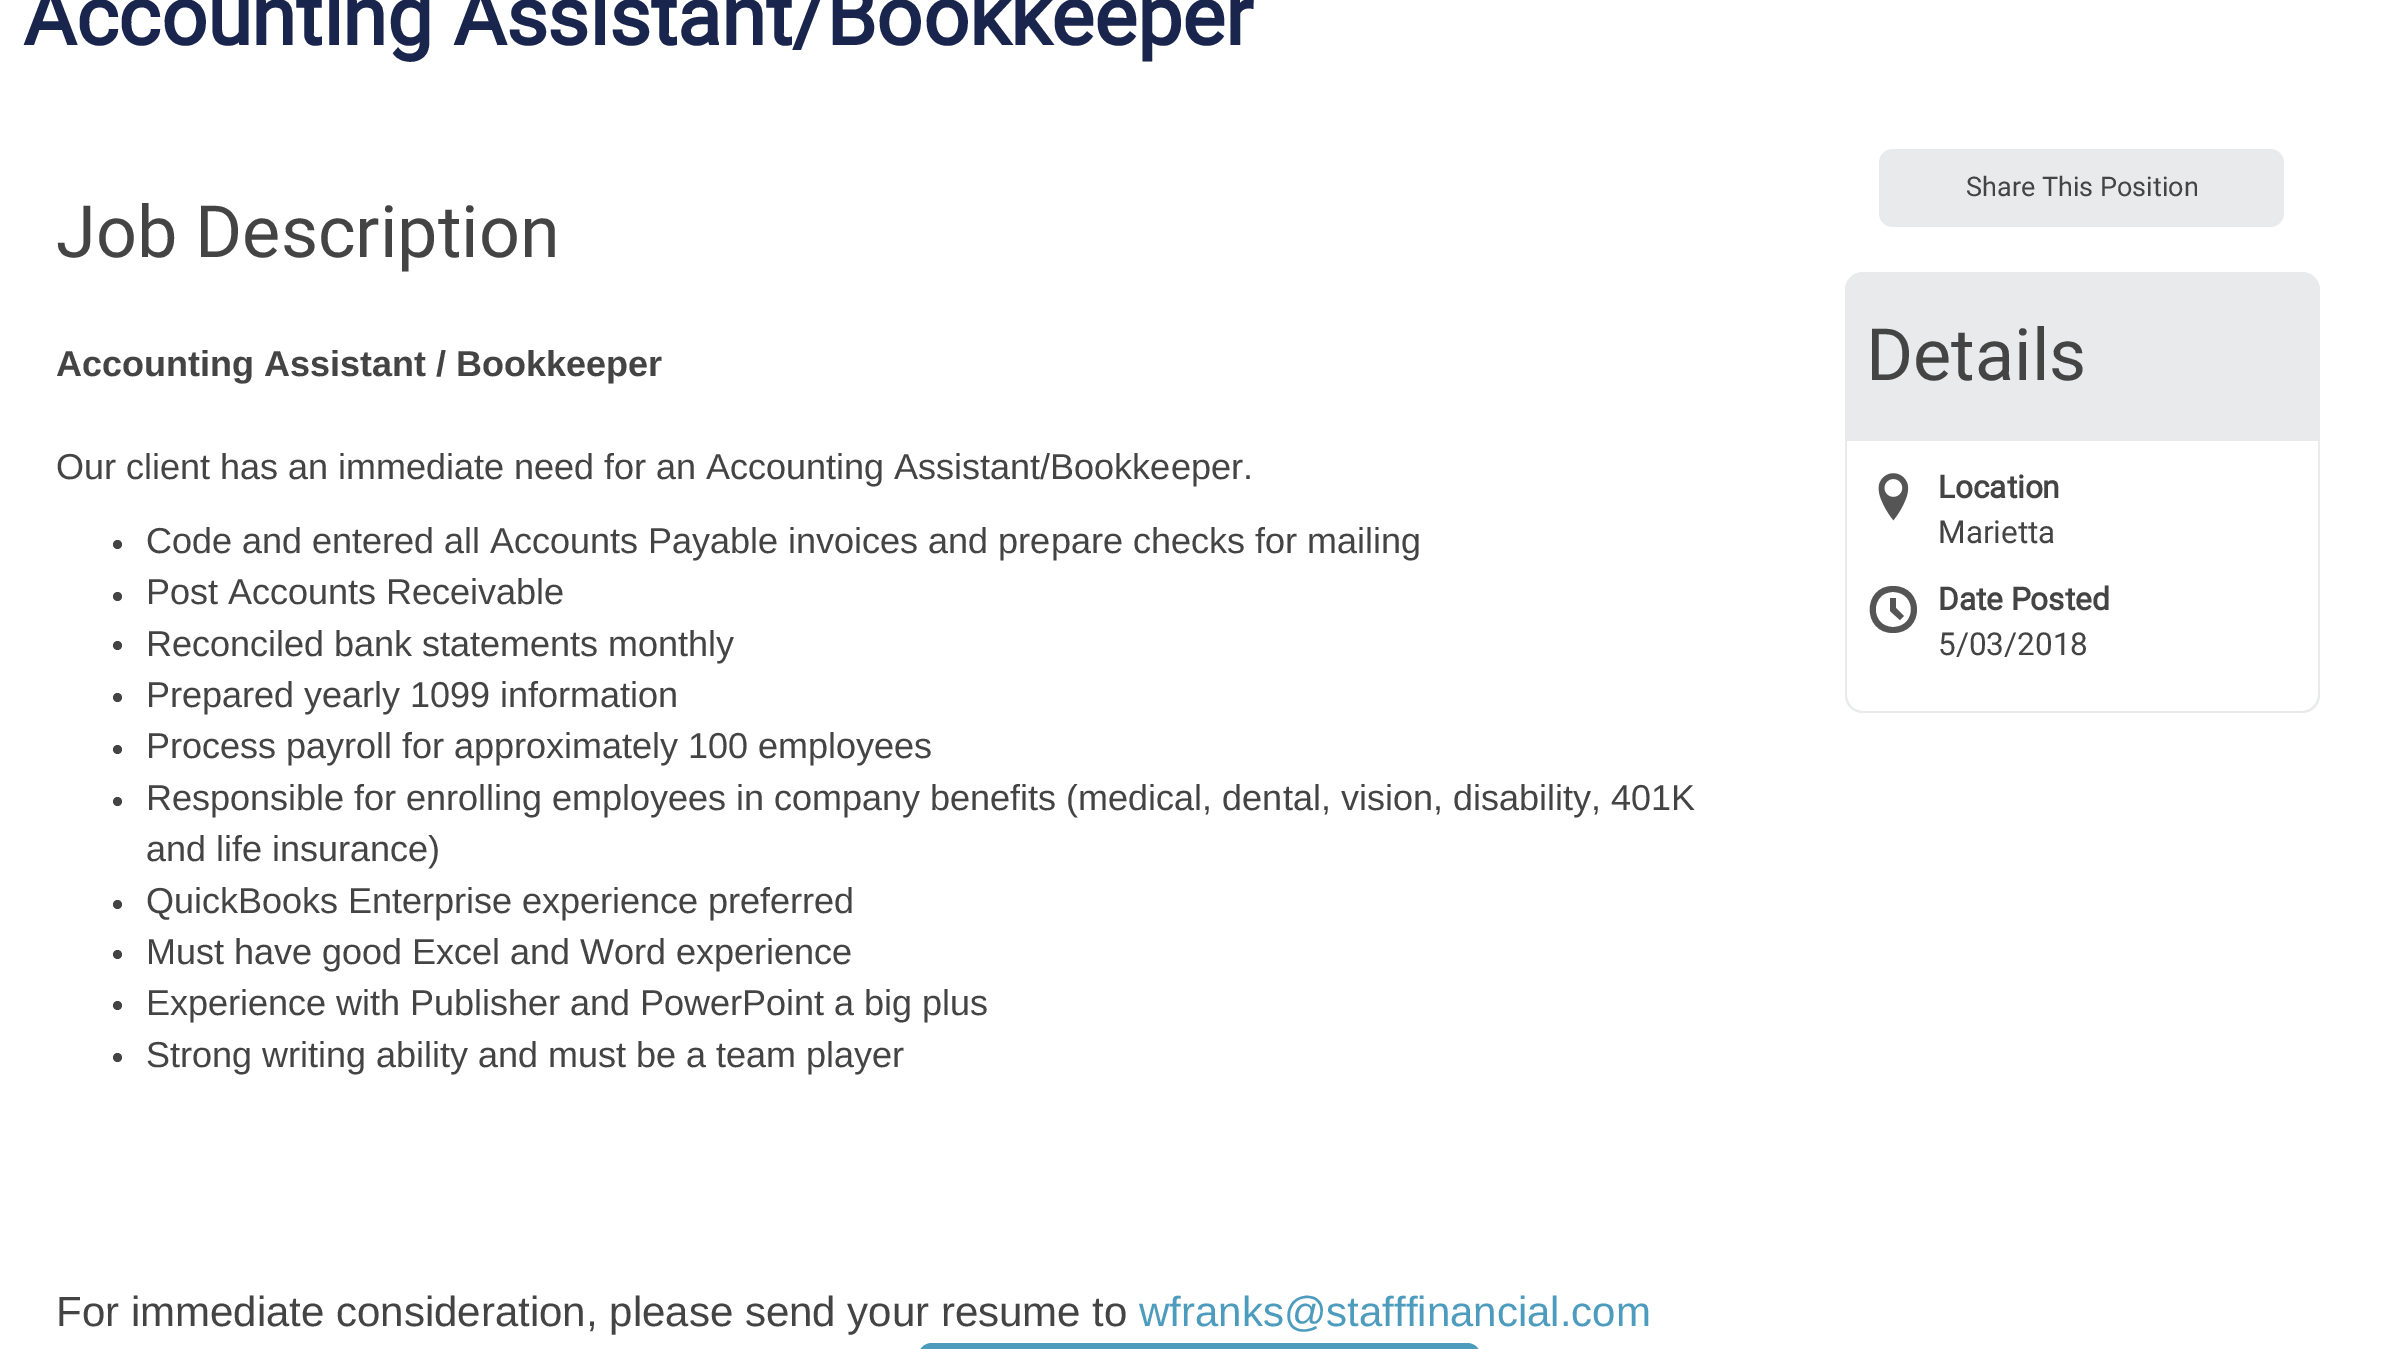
%!PS
<< /PageSize [2397 1349] >> setpagedevice
/roundrect { 5 dict begin { /r /h /w /y /x } { exch def } forall
  x r add y moveto x w add y 2 copy h add r arct x w add y h add x 1 index r arct
  x y h add x y r arct x y 2 copy exch w add exch r arct closepath end } def
/picture { 5 dict begin { /h /w /y /x /name } { exch def } forall
  gsave x y translate w h scale
  w h 8 [w 0 0 h 0 0] name (r) file false 3 colorimage grestore end } def
0 1349 translate 1 -1 scale
4 setmiterlimit
1 setgray
0 0 2397 1349 rectfill
/Roboto-Bold [81 0 0 -81 0 0] selectfont
0.098 0.145 0.298 setrgbcolor
23 45 moveto (Accounting Assistant/Bookkeeper) show
/Roboto-Regular [72 0 0 -72 0 0] selectfont
0.267 setgray
56 257 moveto (Job Description) show
/LiberationSans-Bold [36 0 0 -36 0 0] selectfont
56 376 moveto (Accounting Assistant / Bookkeeper) show
/LiberationSans-Regular [36 0 0 -36 0 0] selectfont
56 479 moveto (Our client has an immediate need for an Accounting Assistant/Bookkeeper.) show
newpath 117.5 544.5 4.5 0 360 arc closepath fill
146 553 moveto (Code and entered all Accounts Payable invoices and prepare checks for mailing) show
newpath 117.5 596.5 4.5 0 360 arc closepath fill
146 604 moveto (Post Accounts Receivable) show
newpath 117.5 645.5 4.5 0 360 arc closepath fill
146 656 moveto (Reconciled bank statements monthly) show
newpath 117.5 697.5 4.5 0 360 arc closepath fill
146 707 moveto (Prepared yearly 1099 information) show
newpath 117.5 749.5 4.5 0 360 arc closepath fill
146 758 moveto (Process payroll for approximately 100 employees) show
newpath 117.5 801.5 4.5 0 360 arc closepath fill
146 810 moveto (Responsible for enrolling employees in company benefits \(medical, dental, vision, disability, 401K) show
146 861 moveto (and life insurance\)) show
newpath 117.5 904.5 4.5 0 360 arc closepath fill
146 913 moveto (QuickBooks Enterprise experience preferred) show
newpath 117.5 954.5 4.5 0 360 arc closepath fill
146 964 moveto (Must have good Excel and Word experience) show
newpath 117.5 1005.5 4.5 0 360 arc closepath fill
146 1015 moveto (Experience with Publisher and PowerPoint a big plus) show
newpath 117.5 1057.5 4.5 0 360 arc closepath fill
146 1067 moveto (Strong writing ability and must be a team player) show
/LiberationSans-Regular [42 0 0 -42 0 0] selectfont
56 1326 moveto (For immediate consideration, please send your resume to) show
0.302 0.612 0.741 setrgbcolor
1139 1326 moveto (wfranks@stafffinancial.com) show
0.91 0.918 0.922 setrgbcolor
1879 149 405 78 14 roundrect fill
/Roboto-Regular [27 0 0 -27 0 0] selectfont
0.267 setgray
1966 196 moveto (Share This Position) show
0.91 0.918 0.922 setrgbcolor
newpath 1863 272 moveto 2302 272 lineto 2312 272 2320 280 2320 290 curveto 2320 441 lineto 1845 441 lineto 1845 290 lineto 1845 280 1853 272 1863 272 curveto closepath fill
/Roboto-Regular [72 0 0 -72 0 0] selectfont
0.267 setgray
1866 380 moveto (Details) show
0.91 0.918 0.922 setrgbcolor
newpath 1845 441 moveto 2320 441 lineto 2320 695 lineto 2320 705 2312 713 2302 713 curveto 1863 713 lineto 1853 713 1845 705 1845 695 curveto closepath 1847 441 moveto 2318 441 lineto 2318 695 lineto 2318 704 2310 711 2302 711 curveto 1863 711 lineto 1854 711 1847 704 1847 695 curveto closepath eofill
(img1.rgb) 1878 473 31 48 picture
/Roboto-Bold [31.5 0 0 -31.5 0 0] selectfont
0.267 setgray
1938 498 moveto (Location) show
/Roboto-Regular [31.5 0 0 -31.5 0 0] selectfont
1938 543 moveto (Marietta) show
0.333 setgray
newpath 1900 620 moveto 1890 611 lineto 1890 598 lineto 1896 598 lineto 1896 608 lineto 1904 616 lineto closepath 1893 586 moveto 1862 586 1862 633 1893 633 curveto 1925 633 1925 586 1893 586 curveto closepath 1893 627 moveto 1870 627 1870 592 1893 592 curveto 1917 592 1917 627 1893 627 curveto closepath fill
/Roboto-Bold [31.5 0 0 -31.5 0 0] selectfont
0.267 setgray
1938 610 moveto (Date Posted) show
/Roboto-Regular [31.5 0 0 -31.5 0 0] selectfont
1938 655 moveto (5/03/2018) show
0.302 0.612 0.741 setrgbcolor
918 1343 563 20 14 roundrect fill
showpage
